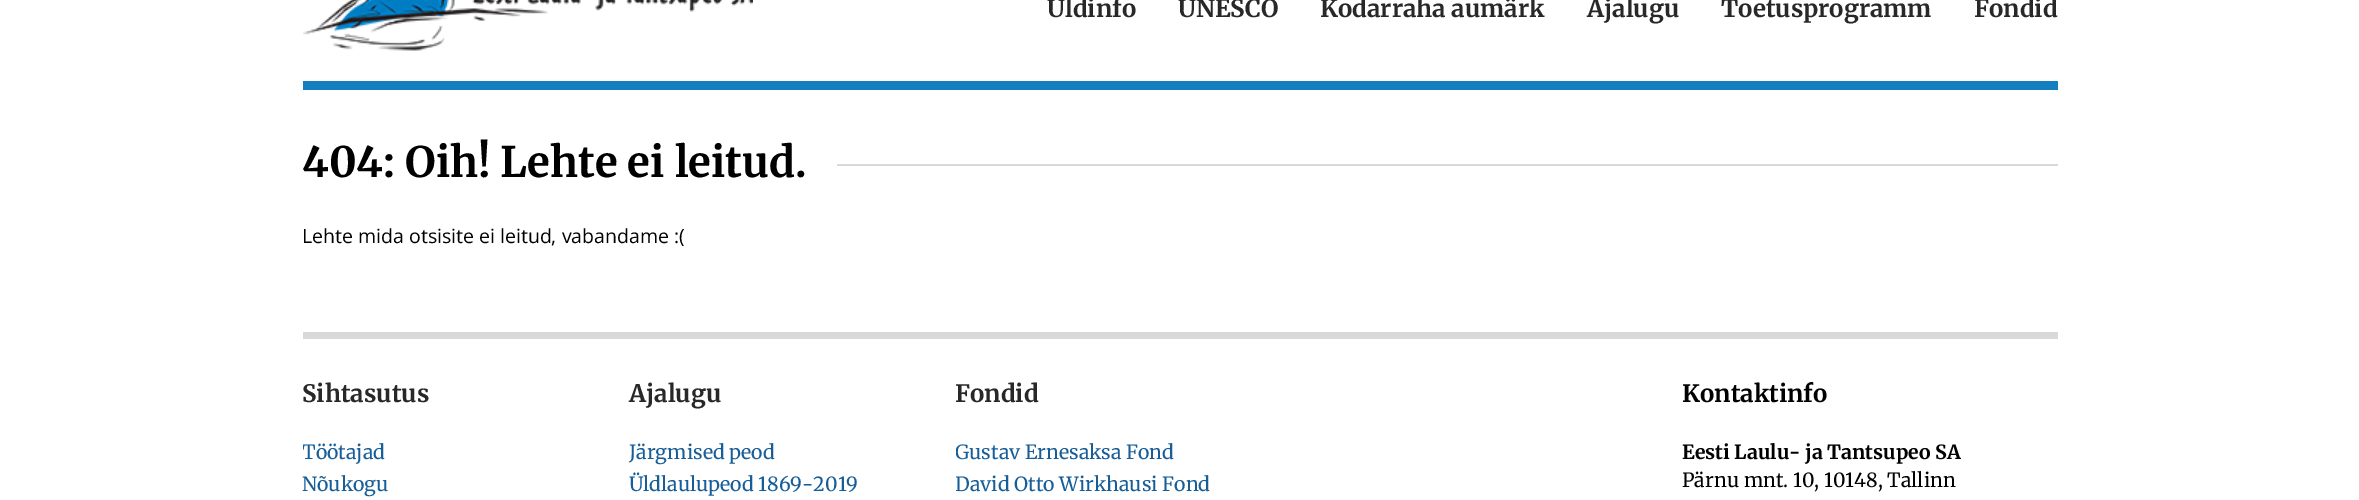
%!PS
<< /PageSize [2359 500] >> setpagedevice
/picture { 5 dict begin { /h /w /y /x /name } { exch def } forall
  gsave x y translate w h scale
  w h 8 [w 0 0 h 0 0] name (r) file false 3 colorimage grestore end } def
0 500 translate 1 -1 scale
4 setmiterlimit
1 setgray
0 0 2359 500 rectfill
0.075 0.498 0.757 setrgbcolor
303 81 1755 9 rectfill
(img1.rgb) 303 0 450 51 picture
/Merriweather-Bold [24 0 0 -24 0 0] selectfont
0.157 setgray
1047 17 moveto (Üldinfo) show
1178 17 moveto (UNESCO) show
1320 17 moveto (Kodarraha aumärk) show
1587 17 moveto (Ajalugu) show
1721 17 moveto (Toetusprogramm) show
1974 17 moveto (Fondid) show
/Merriweather-Bold [42 0 0 -42 0 0] selectfont
0 setgray
302 177 moveto (404: Oih! Lehte ei leitud.) show
0.851 setgray
837 164 1221 2 rectfill
/OpenSans-Regular [19.5 0 0 -19.5 0 0] selectfont
0 setgray
302 243 moveto (Lehte mida otsisite ei leitud, vabandame :\() show
0.851 setgray
303 332 1755 7 rectfill
/Merriweather-Bold [24 0 0 -24 0 0] selectfont
0.157 setgray
302 402 moveto (Sihtasutus) show
gsave
303 410 311 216 rectclip
/Merriweather-Regular [19.5 0 0 -19.5 0 0] selectfont
0.09 0.365 0.592 setrgbcolor
302 459 moveto (Töötajad) show
grestore
/Merriweather-Regular [19.5 0 0 -19.5 0 0] selectfont
0.09 0.365 0.592 setrgbcolor
302 491 moveto (Nõukogu) show
/Merriweather-Bold [24 0 0 -24 0 0] selectfont
0.157 setgray
629 402 moveto (Ajalugu) show
/Merriweather-Regular [19.5 0 0 -19.5 0 0] selectfont
0.09 0.365 0.592 setrgbcolor
629 459 moveto (Järgmised peod) show
629 491 moveto (Üldlaulupeod 1869-2019) show
/Merriweather-Bold [24 0 0 -24 0 0] selectfont
0.157 setgray
955 402 moveto (Fondid) show
gsave
956 410 310 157 rectclip
/Merriweather-Regular [19.5 0 0 -19.5 0 0] selectfont
0.09 0.365 0.592 setrgbcolor
955 459 moveto (Gustav Ernesaksa Fond) show
955 491 moveto (David Otto Wirkhausi Fond) show
grestore
0 setgray
1682 402 moveto (Kontaktinfo) show
/Merriweather-Bold [19.5 0 0 -19.5 0 0] selectfont
1682 459 moveto (Eesti Laulu- ja Tantsupeo SA) show
/Merriweather-Regular [19.5 0 0 -19.5 0 0] selectfont
1682 487 moveto (Pärnu mnt. 10, 10148, Tallinn) show
showpage
